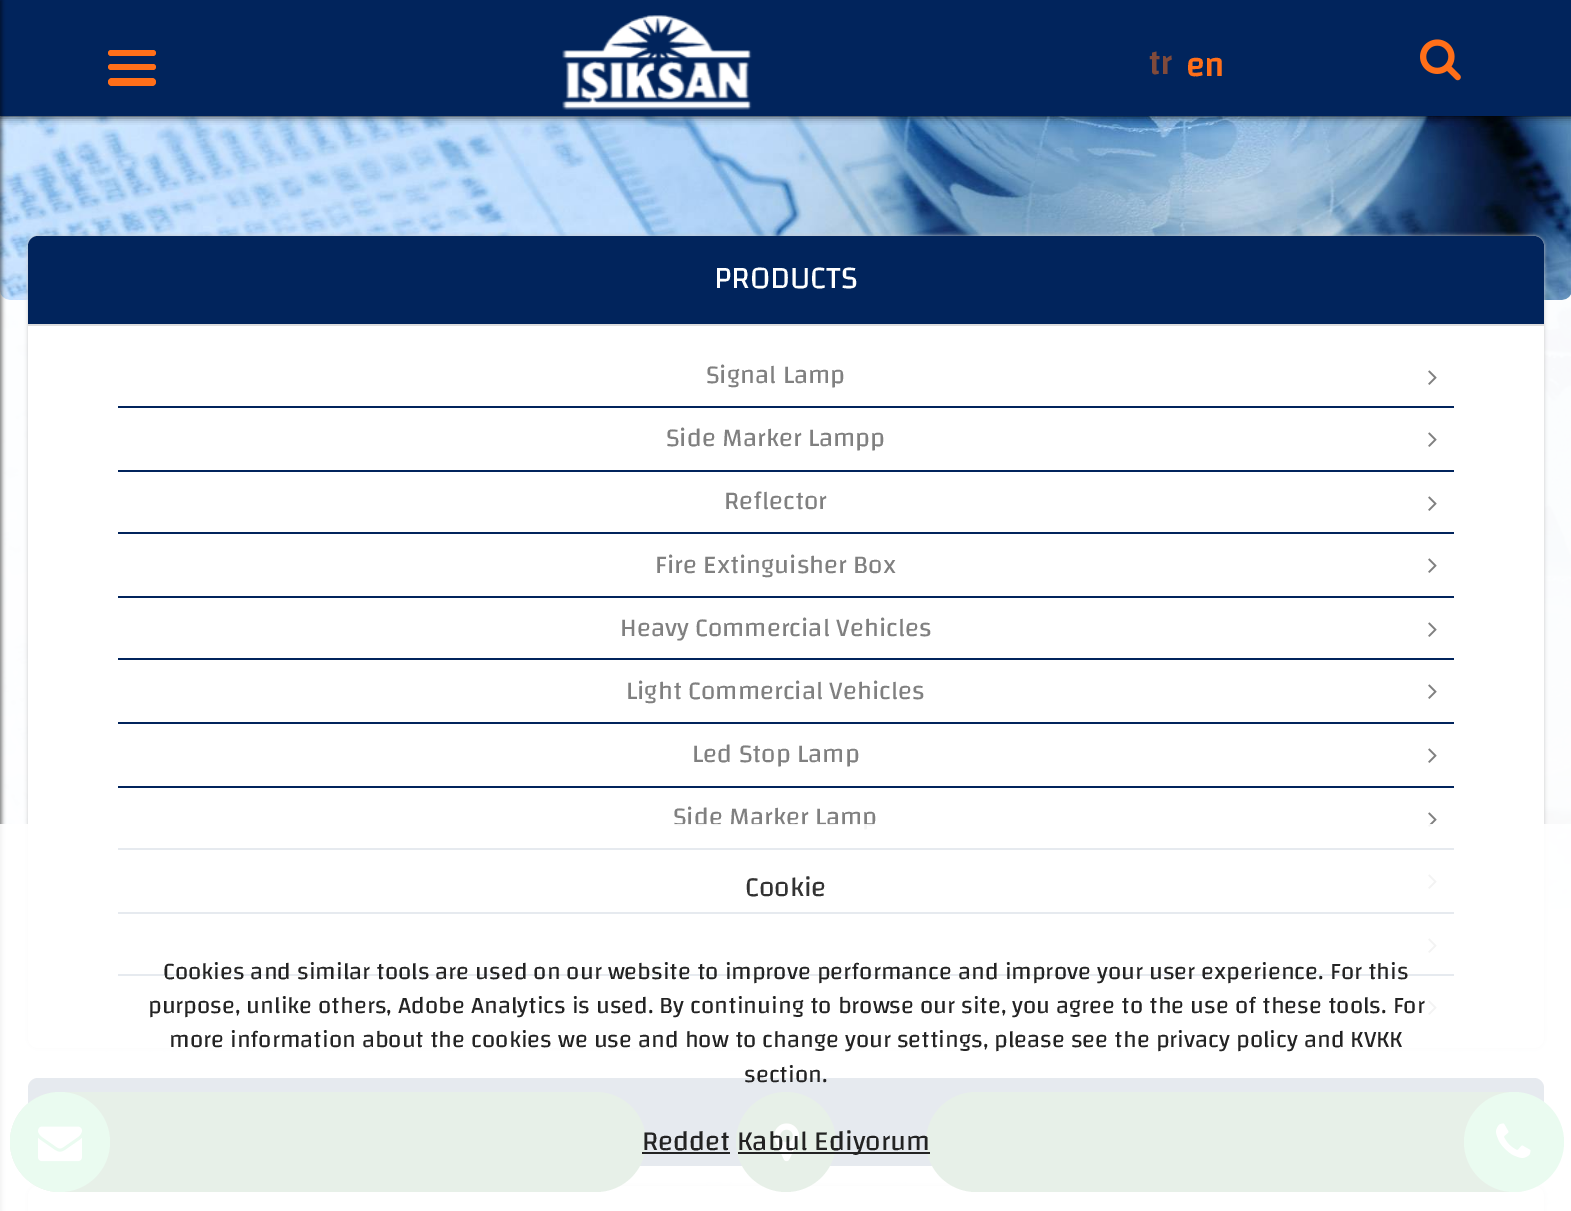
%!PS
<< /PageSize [1571 1211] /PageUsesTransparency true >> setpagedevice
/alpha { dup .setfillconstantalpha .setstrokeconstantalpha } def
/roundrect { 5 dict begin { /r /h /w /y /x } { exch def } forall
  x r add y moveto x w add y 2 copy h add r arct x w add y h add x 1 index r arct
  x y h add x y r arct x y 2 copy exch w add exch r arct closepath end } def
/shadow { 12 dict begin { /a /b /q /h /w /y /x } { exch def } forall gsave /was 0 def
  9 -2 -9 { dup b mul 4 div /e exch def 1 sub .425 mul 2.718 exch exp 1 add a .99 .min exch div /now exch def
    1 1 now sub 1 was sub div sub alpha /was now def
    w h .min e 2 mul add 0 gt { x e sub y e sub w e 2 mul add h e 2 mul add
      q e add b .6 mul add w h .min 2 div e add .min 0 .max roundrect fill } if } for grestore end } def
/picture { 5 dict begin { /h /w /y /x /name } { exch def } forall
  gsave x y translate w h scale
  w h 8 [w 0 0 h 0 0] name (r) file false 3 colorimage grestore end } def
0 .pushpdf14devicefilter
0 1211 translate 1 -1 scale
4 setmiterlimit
1 setgray
0 0 1571 1211 rectfill
(img5.rgb) 0 290 1571 921 picture
(img3.rgb) 0 116 1571 184 picture
0 setgray
0 0 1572 116 0 4 1 shadow
0.004 0.141 0.361 setrgbcolor
0 0 1571 116 rectfill
0 setgray
-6 0 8 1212 0 2 0.5 shadow
1 0.435 0.098 setrgbcolor
108 50 48 6 3 roundrect fill
108 64 48 6 3 roundrect fill
108 78 48 8 4 roundrect fill
(img1.rgb) 562 15 190 95 picture
/Changa-Bold [34 0 0 -34 0 0] selectfont
0.502 0.29 0.231 setrgbcolor
1148 74 moveto (tr) show
1 0.435 0.098 setrgbcolor
1186 76 moveto (en) show
(img2.rgb) 1420 39 41 42 picture
0.78 setgray
28 236 1516 812 10 2 1 shadow
1 setgray
28 236 1516 812 10 roundrect fill
0.004 0.141 0.361 setrgbcolor
newpath 38 236 moveto 1534 236 lineto 1539.5 236 1544 240.5 1544 246 curveto 1544 326 lineto 28 326 lineto 28 246 lineto 28 240.5 32.5 236 38 236 curveto closepath fill
0.867 setgray
28 324 1516 2 rectfill
/Changa-Regular [32 0 0 -32 0 0] selectfont
1 setgray
714 288 moveto (PRODUCTS) show
0.004 0.141 0.361 setrgbcolor
118 406 1336 2 rectfill
/Changa-Regular [26 0 0 -26 0 0] selectfont
0.502 setgray
706 383 moveto (Signal Lamp) show
(img4.rgb) 1428 370 9 15 picture
0.004 0.141 0.361 setrgbcolor
118 470 1336 2 rectfill
0.502 setgray
666 446 moveto (Side Marker Lampp) show
(img4.rgb) 1428 432 9 15 picture
0.004 0.141 0.361 setrgbcolor
118 532 1336 2 rectfill
0.502 setgray
724 509 moveto (Reflector) show
(img4.rgb) 1428 496 9 15 picture
0.004 0.141 0.361 setrgbcolor
118 596 1336 2 rectfill
0.502 setgray
655 573 moveto (Fire Extinguisher Box) show
(img4.rgb) 1428 558 9 15 picture
0.004 0.141 0.361 setrgbcolor
118 658 1336 2 rectfill
0.502 setgray
620 636 moveto (Heavy Commercial Vehicles) show
(img4.rgb) 1428 622 9 15 picture
0.004 0.141 0.361 setrgbcolor
118 722 1336 2 rectfill
0.502 setgray
626 699 moveto (Light Commercial Vehicles) show
(img4.rgb) 1428 684 9 15 picture
0.004 0.141 0.361 setrgbcolor
118 786 1336 2 rectfill
0.502 setgray
692 762 moveto (Led Stop Lamp) show
(img4.rgb) 1428 748 9 15 picture
0.004 0.141 0.361 setrgbcolor
118 848 1336 2 rectfill
0.502 setgray
673 825 moveto (Side Marker Lamp) show
(img4.rgb) 1428 812 9 15 picture
0.004 0.141 0.361 setrgbcolor
118 912 1336 2 rectfill
(img4.rgb) 1428 874 9 15 picture
118 974 1336 2 rectfill
(img4.rgb) 1428 938 9 15 picture
(img4.rgb) 1428 1000 9 15 picture
28 1078 1516 88 10 roundrect fill
0.78 setgray
28 1186 1516 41 10 2 1 shadow
1 setgray
28 1186 1516 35 10 roundrect fill
0.059 0.384 0.075 setrgbcolor
10 1092 636 100 50 roundrect fill
0.145 0.827 0.4 setrgbcolor
newpath 60 1142 50 0 360 arc closepath fill
(img6.rgb) 38 1126 44 36 picture
0.059 0.384 0.075 setrgbcolor
newpath 786 1142 50 0 360 arc closepath fill
(img7.rgb) 774 1123 26 39 picture
926 1092 636 100 50 roundrect fill
0.145 0.827 0.4 setrgbcolor
newpath 1514 1142 50 0 360 arc closepath fill
(img8.rgb) 1496 1123 35 35 picture
0.9 alpha
1 setgray
0 824 1571 387 rectfill
/Changa-Regular [28 0 0 -28 0 0] selectfont
1 alpha
0.2 setgray
745 896 moveto (Cookie) show
/Changa-Regular [24 0 0 -24 0 0] selectfont
0.137 setgray
163 979 moveto (Cookies and similar tools are used on our website to improve performance and improve your user experience. For this) show
148 1013 moveto (purpose, unlike others, Adobe Analytics is used. By continuing to browse our site, you agree to the use of these tools. For) show
169 1047 moveto (more information about the cookies we use and how to change your settings, please see the privacy policy and KVKK) show
744 1082 moveto (section.) show
/Changa-Regular [28 0 0 -28 0 0] selectfont
642 1150 moveto (Reddet) show
642 1152 88 2 rectfill
738 1152 192 2 rectfill
737 1150 moveto (Kabul Ediyorum) show
.poppdf14devicefilter showpage
